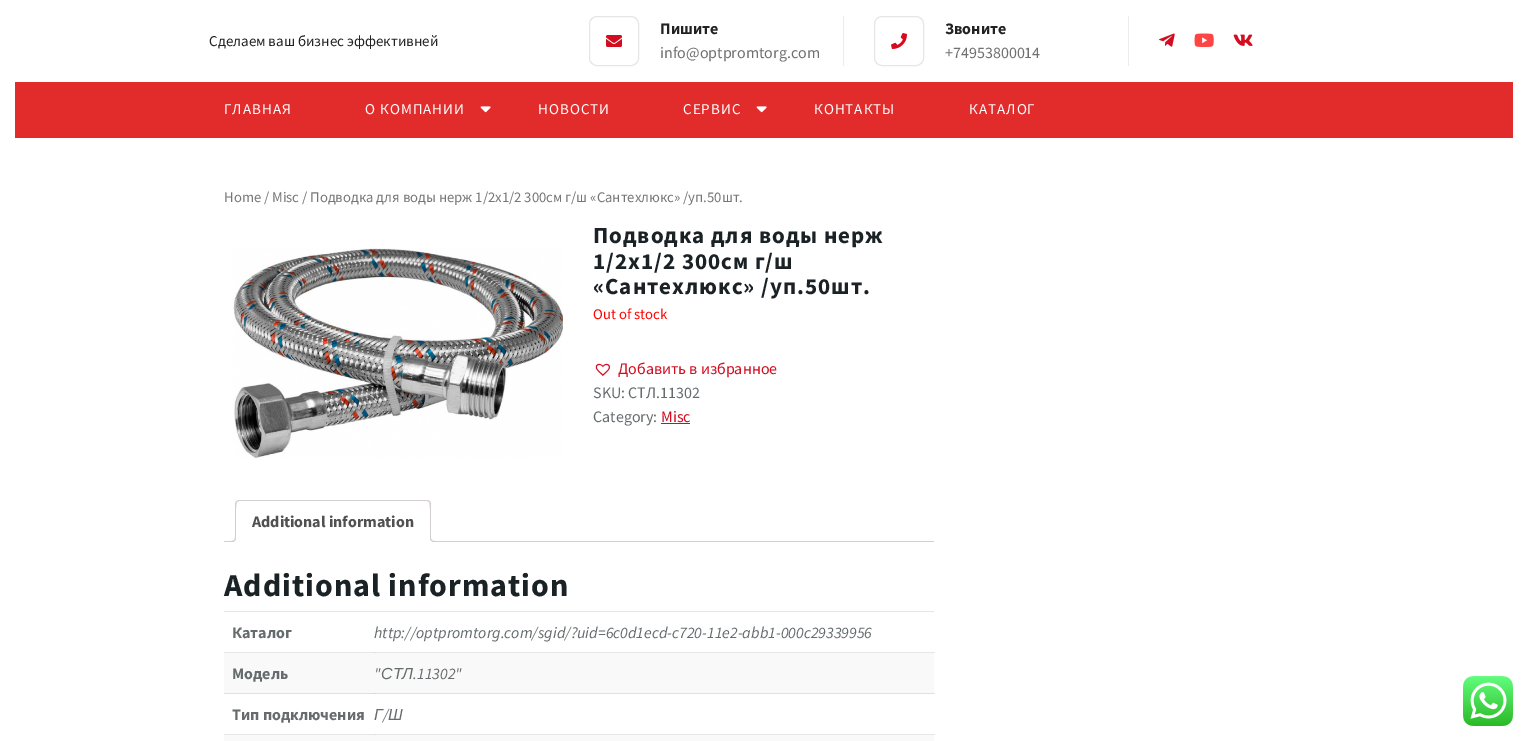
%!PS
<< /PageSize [1528 741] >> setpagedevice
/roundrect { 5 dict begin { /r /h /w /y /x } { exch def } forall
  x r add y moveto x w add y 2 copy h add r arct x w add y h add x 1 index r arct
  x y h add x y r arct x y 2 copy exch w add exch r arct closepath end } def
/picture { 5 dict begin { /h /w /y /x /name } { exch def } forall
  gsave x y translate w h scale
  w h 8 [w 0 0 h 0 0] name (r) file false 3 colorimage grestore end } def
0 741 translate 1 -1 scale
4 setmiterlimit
1 setgray
0 0 1528 741 rectfill
0.902 setgray
224 652 711 1 rectfill
934 693 1 1 rectfill
224 734 711 1 rectfill
/SourceSansPro-Regular [15 0 0 -15 0 0] selectfont
0.133 setgray
209 46 moveto (Сделаем ваш бизнес эффективней) show
0.925 setgray
843 16 1 50 rectfill
0.902 0.902 0.906 setrgbcolor
589.5 16.5 49 49 7.5 roundrect stroke
(img1.rgb) 606 35 16 12 picture
/SourceSansPro-Bold [16 0 0 -16 0 0] selectfont
0.133 setgray
660 34 moveto (Пишите) show
/SourceSansPro-Regular [16 0 0 -16 0 0] selectfont
0.439 setgray
660 58 moveto (info@optpromtorg.com) show
0.925 setgray
1128 16 1 50 rectfill
0.902 0.902 0.906 setrgbcolor
874.5 16.5 49 49 7.5 roundrect stroke
(img2.rgb) 891 33 16 16 picture
/SourceSansPro-Bold [16 0 0 -16 0 0] selectfont
0.133 setgray
945 34 moveto (Звоните) show
/SourceSansPro-Regular [16 0 0 -16 0 0] selectfont
0.439 setgray
945 58 moveto (+74953800014) show
(img3.rgb) 1159 33 16 14 picture
(img4.rgb) 1194 33 20 14 picture
(img5.rgb) 1233 34 20 12 picture
0.886 0.169 0.169 setrgbcolor
15 82 1498 56 rectfill
/SourceSansPro-Regular [15 0 0 -15 0 0] selectfont
1 setgray
224 114 moveto 1 0 (ГЛАВНАЯ) ashow
365 114 moveto 1 0 (О КОМПАНИИ) ashow
(img6.rgb) 480 106 11 7 picture
538 114 moveto 1 0 (НОВОСТИ) ashow
683 114 moveto 1 0 (СЕРВИС) ashow
(img6.rgb) 756 106 11 7 picture
814 114 moveto 1 0 (КОНТАКТЫ) ashow
969 114 moveto 1 0 (КАТАЛОГ) ashow
/SourceSansPro-Regular [14.7 0 0 -14.7 0 0] selectfont
0.463 setgray
224 202 moveto (Home / Misc / Подводка для воды нерж 1/2х1/2 300см г/ш «Сантехлюкс» /уп.50шт.) show
(img7.rgb) 233 248 330 210 picture
/SourceSansPro-Bold [23 0 0 -23 0 0] selectfont
0.102 0.133 0.145 setrgbcolor
593 243 moveto 1 0 (Подводка для воды нерж) ashow
593 269 moveto 1 0 (1/2х1/2 300см г/ш) ashow
593 294 moveto 1 0 («Сантехлюкс» /уп.50шт.) ashow
/SourceSansPro-Regular [14.7 0 0 -14.7 0 0] selectfont
1 0 0 setrgbcolor
593 319 moveto (Out of stock) show
(img8.rgb) 595 363 15 13 picture
/SourceSansPro-Regular [16 0 0 -16 0 0] selectfont
0.827 0.047 0.122 setrgbcolor
618 374 moveto (Добавить в избранное) show
0.4 0.424 0.431 setrgbcolor
593 398 moveto (SKU: СТЛ.11302) show
593 422 moveto (Category:) show
0.827 0.047 0.122 setrgbcolor
661 422 moveto (Misc) show
661 423 29 1 rectfill
0.827 0.808 0.824 setrgbcolor
224 541 710 1 rectfill
1 setgray
newpath 239 500 moveto 427 500 lineto 429 500 431 502 431 504 curveto 431 542 lineto 235 542 lineto 235 504 lineto 235 502 237 500 239 500 curveto closepath fill
0.827 0.808 0.824 setrgbcolor
newpath 239 500 moveto 236 501 lineto 237 502 lineto 239 501 lineto 427 501 lineto 429 502 lineto 430 501 lineto 427 500 lineto closepath fill
newpath 431 542 moveto 431 504 lineto 431 503 430 502 430 501 curveto 429 502 lineto 431 504 430 536 430 541 curveto closepath fill
1 setgray
newpath 431 542 moveto 430 541 lineto 236 541 lineto 235 542 lineto closepath fill
0.827 0.808 0.824 setrgbcolor
newpath 235 542 moveto 236 541 lineto 236 536 235 504 237 502 curveto 236 501 lineto 235 504 lineto closepath fill
/SourceSansPro-Bold [16 0 0 -16 0 0] selectfont
0.318 setgray
252 527 moveto (Additional information) show
gsave
224 500 710 42 rectclip
1 setgray
newpath 233 542 moveto 233 544 lineto 236.5 544 238 542.5 238 539 curveto 236 539 lineto 235.5 540.5 234.5 541.5 233 542 curveto closepath fill
grestore
0.827 0.808 0.824 setrgbcolor
newpath 231 537 moveto 236 537 lineto 236 540.5 234.5 542 231 542 curveto closepath 231 537 moveto 235 537 lineto 235 540 234 541 231 541 curveto closepath eofill
gsave
224 500 710 42 rectclip
1 setgray
newpath 428 539 moveto 428 542.5 429.5 544 433 544 curveto 433 542 lineto 431.5 541.5 430.5 540.5 430 539 curveto closepath fill
grestore
newpath 430 537 moveto 435 537 lineto 435 542 lineto 432.5 542 430 541 430 538 curveto closepath 431 537 moveto 435 537 lineto 435 541 lineto 433 541 431 540.5 431 538 curveto closepath eofill
/SourceSansPro-Bold [32 0 0 -32 0 0] selectfont
0.102 0.133 0.145 setrgbcolor
224 596 moveto 1 0 (Additional information) ashow
0.902 setgray
224 611 710 1 rectfill
/SourceSansPro-Bold [16 0 0 -16 0 0] selectfont
0.4 0.424 0.431 setrgbcolor
232 638 moveto (Каталог) show
0.812 setgray
374 652 1 1 rectfill
/SourceSansPro-Italic [16 0 0 -16 0 0] selectfont
0.4 0.424 0.431 setrgbcolor
374 638 moveto (http://optpromtorg.com/sgid/?uid=6c0d1ecd-c720-11e2-abb1-000c29339956) show
0.976 setgray
224 653 710 40 rectfill
0.878 setgray
224 693 710 1 rectfill
/SourceSansPro-Bold [16 0 0 -16 0 0] selectfont
0.4 0.424 0.431 setrgbcolor
232 679 moveto (Модель) show
0.792 setgray
374 693 1 1 rectfill
/SourceSansPro-Italic [16 0 0 -16 0 0] selectfont
0.4 0.424 0.431 setrgbcolor
374 679 moveto (") show
/LiberationSans-Italic [16 0 0 -16 0 0] selectfont
381 679 moveto (СТЛ) show
/SourceSansPro-Italic [16 0 0 -16 0 0] selectfont
413 679 moveto (.11302") show
/SourceSansPro-Bold [16 0 0 -16 0 0] selectfont
232 720 moveto (Тип подключения) show
0.812 setgray
374 734 1 1 rectfill
/LiberationSans-Italic [16 0 0 -16 0 0] selectfont
0.4 0.424 0.431 setrgbcolor
374 720 moveto (Г) show
/SourceSansPro-Italic [16 0 0 -16 0 0] selectfont
383 720 moveto (/) show
/LiberationSans-Italic [16 0 0 -16 0 0] selectfont
388 720 moveto (Ш) show
0.976 setgray
224 735 710 6 rectfill
(img9.rgb) 1463 676 50 50 picture
showpage
